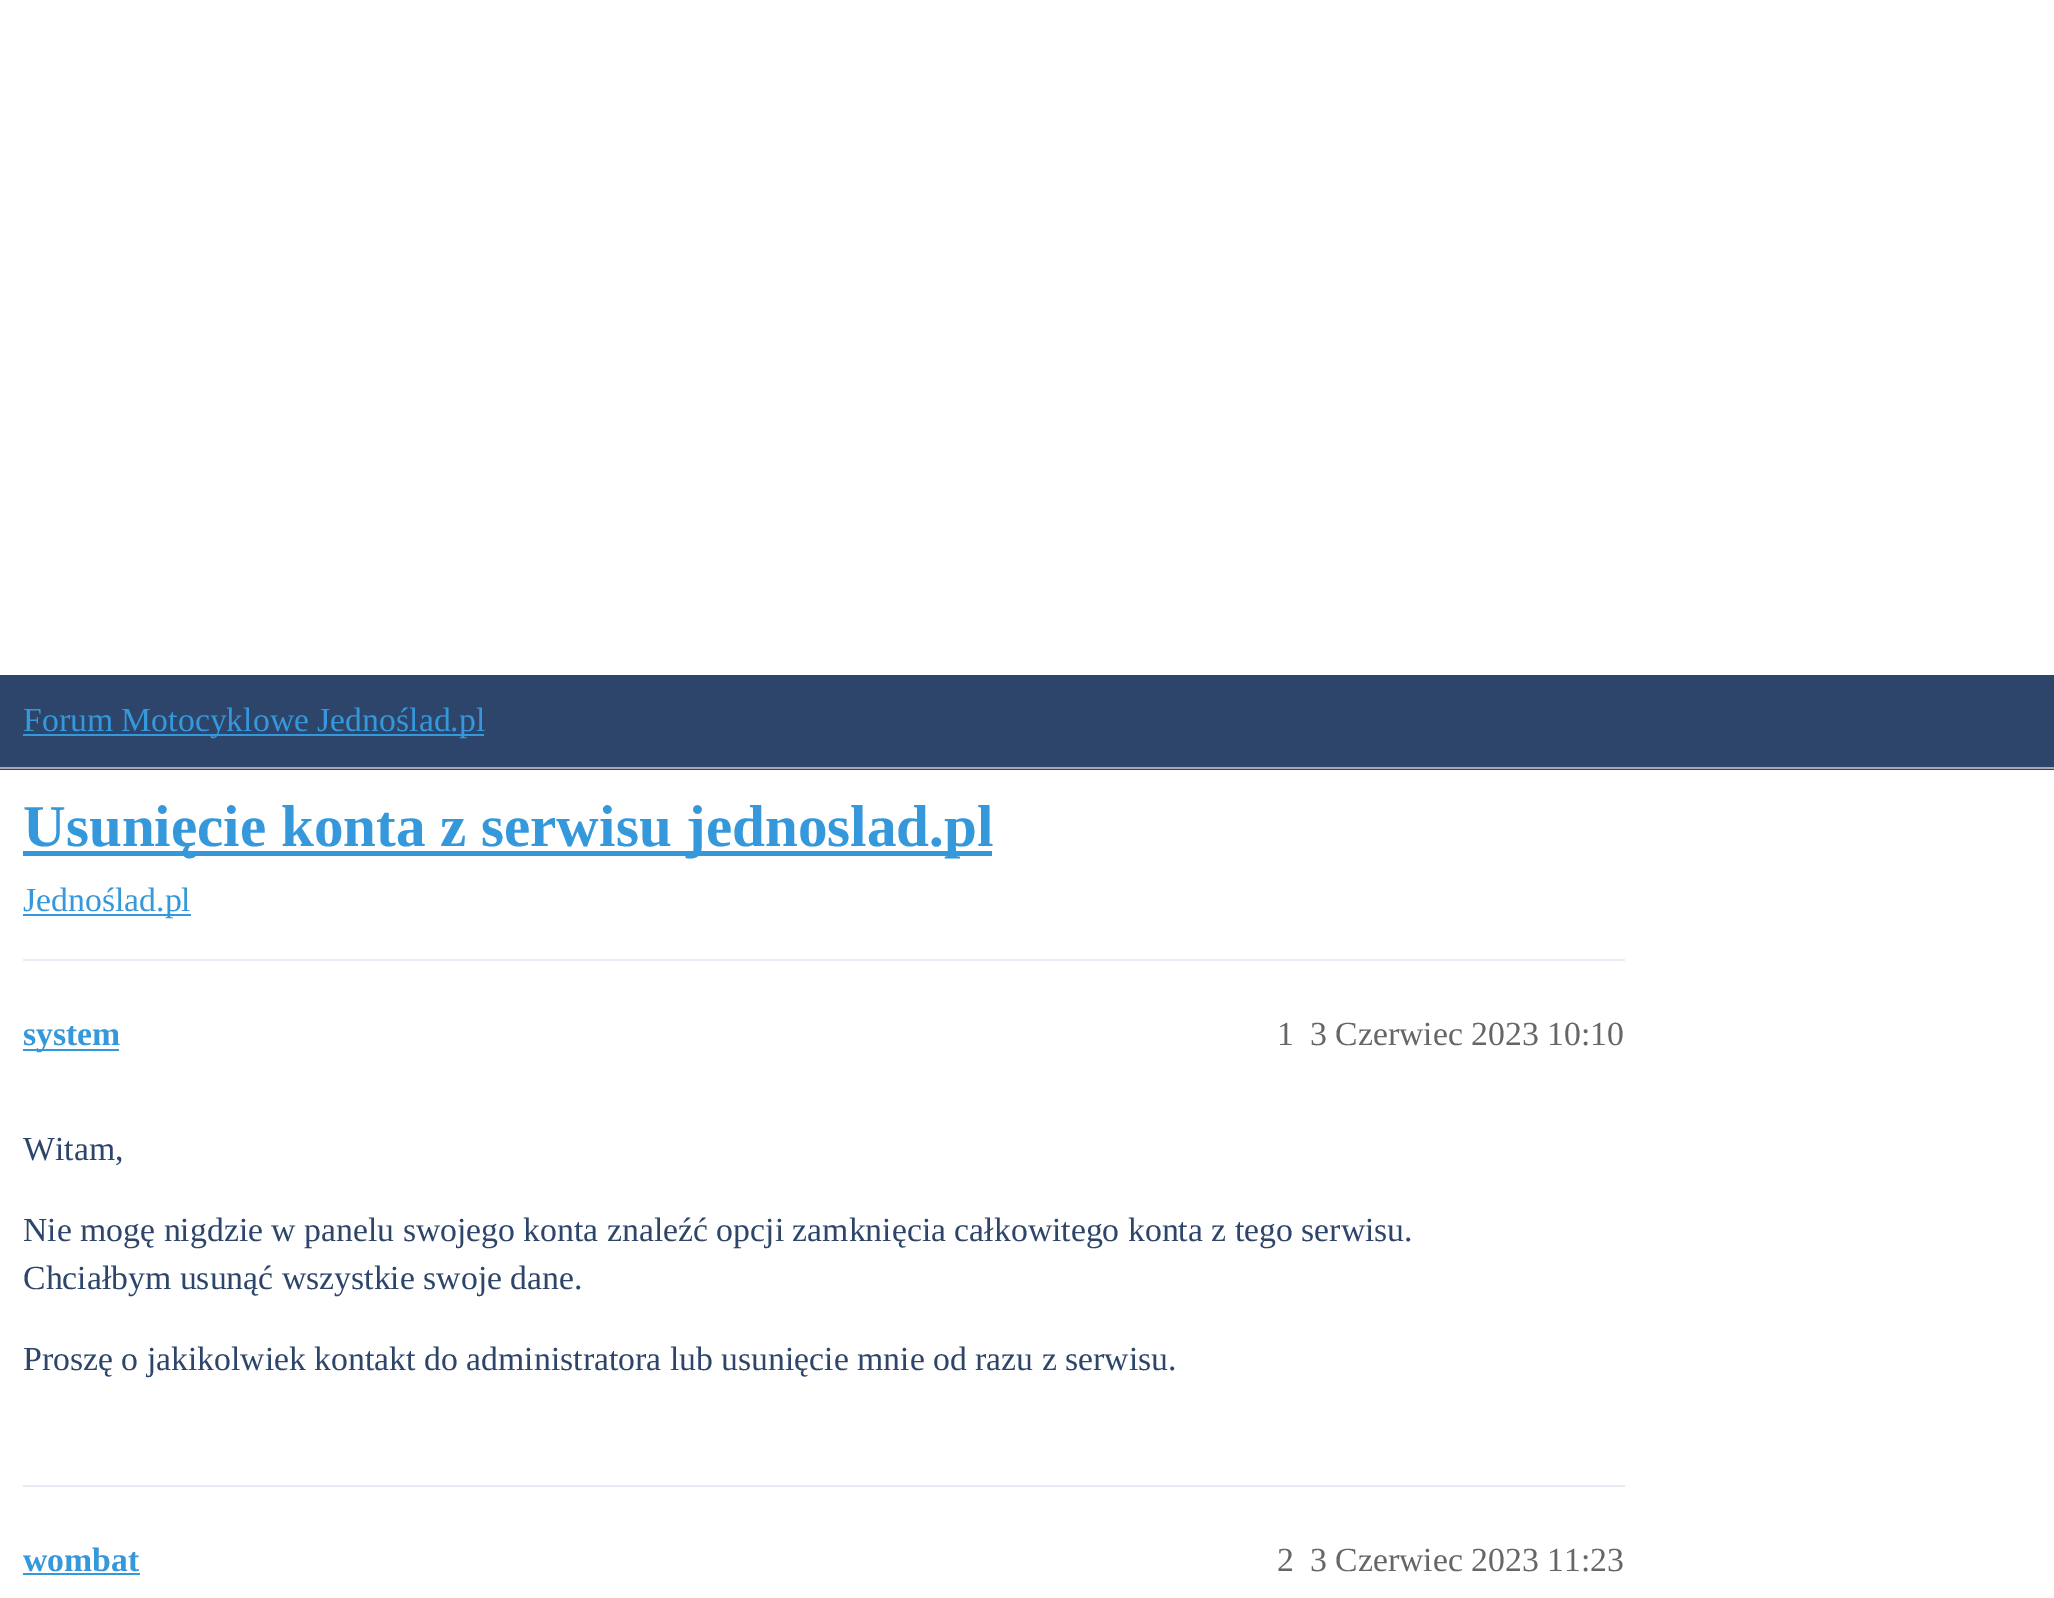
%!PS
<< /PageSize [2054 1598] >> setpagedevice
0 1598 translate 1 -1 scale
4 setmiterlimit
1 setgray
0 0 2054 1598 rectfill
0.18 0.271 0.42 setrgbcolor
0 675 2054 95 rectfill
0.655 0.667 0.702 setrgbcolor
0 767 2054 2 rectfill
0.204 0.596 0.859 setrgbcolor
23 734 461 2 rectfill
/LiberationSerif-Regular [33.75 0 0 -33.75 0 0] selectfont
23 731 moveto (Forum Motocyklowe Jednoślad.pl) show
23 851 969 5 rectfill
/LiberationSerif-Bold [59.1 0 0 -59.1 0 0] selectfont
23 846 moveto (Usunięcie konta z serwisu jednoslad.pl) show
23 914 168 2 rectfill
/LiberationSerif-Regular [33.75 0 0 -33.75 0 0] selectfont
23 911 moveto (Jednoślad.pl) show
0.902 0.922 0.957 setrgbcolor
23 959 1602 2 rectfill
0.204 0.596 0.859 setrgbcolor
23 1049 96 2 rectfill
/LiberationSerif-Bold [33.75 0 0 -33.75 0 0] selectfont
23 1045 moveto (system) show
/LiberationSerif-Regular [33.75 0 0 -33.75 0 0] selectfont
0.4 setgray
1277 1045 moveto (1) show
1310 1045 moveto (3 Czerwiec 2023 10:10) show
0.18 0.271 0.42 setrgbcolor
23 1160 moveto (Witam,) show
23 1241 moveto (Nie mogę nigdzie w panelu swojego konta znaleźć opcji zamknięcia całkowitego konta z tego serwisu.) show
23 1289 moveto (Chciałbym usunąć wszystkie swoje dane.) show
23 1370 moveto (Proszę o jakikolwiek kontakt do administratora lub usunięcie mnie od razu z serwisu.) show
0.902 0.922 0.957 setrgbcolor
23 1485 1602 2 rectfill
/LiberationSerif-Bold [33.75 0 0 -33.75 0 0] selectfont
0.204 0.596 0.859 setrgbcolor
23 1571 moveto (wombat) show
23 1573 117 2 rectfill
/LiberationSerif-Regular [33.75 0 0 -33.75 0 0] selectfont
0.4 setgray
1277 1571 moveto (2) show
1310 1571 moveto (3 Czerwiec 2023 11:23) show
showpage
